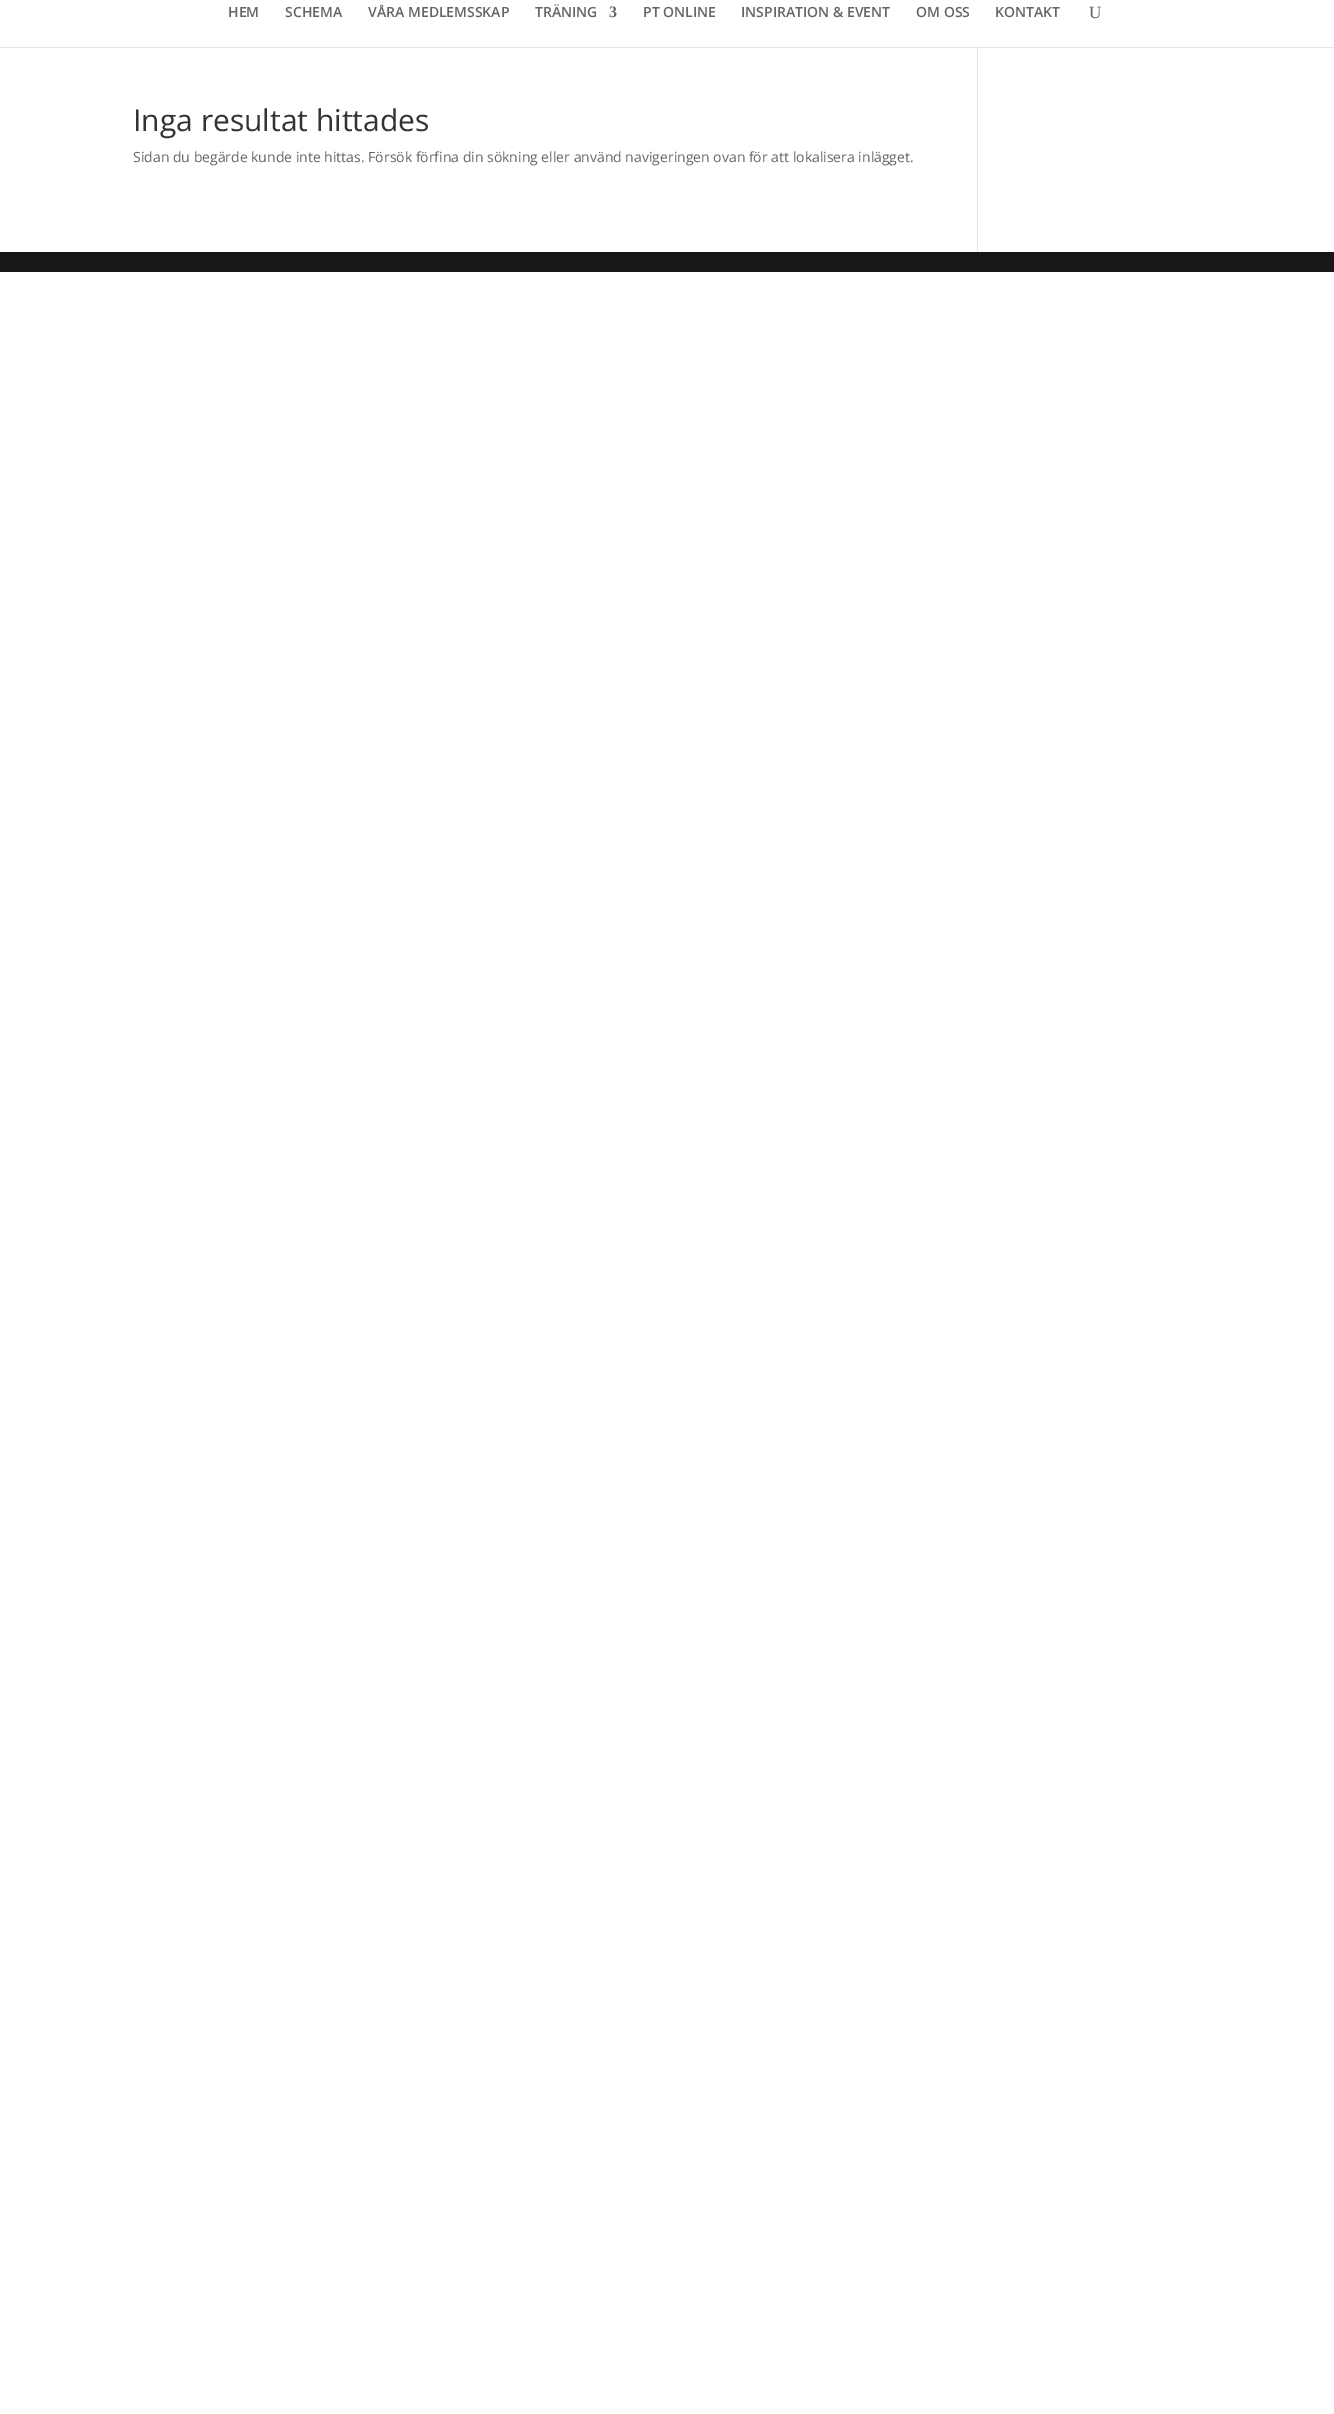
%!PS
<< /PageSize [1334 2414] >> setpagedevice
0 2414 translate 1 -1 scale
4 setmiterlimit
1 setgray
0 0 1334 2414 rectfill
0.902 setgray
0 47 1334 1 rectfill
/OpenSans-SemiBold [14 0 0 -14 0 0] selectfont
0.4 setgray
228 17 moveto (HEM) show
285 17 moveto (SCHEMA) show
368 17 moveto (VÅRA MEDLEMSSKAP) show
535 17 moveto (TRÄNING) show
/LiberationSerif-Bold [16 0 0 -16 0 0] selectfont
609 17 moveto (3) show
/OpenSans-SemiBold [14 0 0 -14 0 0] selectfont
643 17 moveto (PT ONLINE) show
741 17 moveto (INSPIRATION & EVENT) show
916 17 moveto (OM OSS) show
995 17 moveto (KONTAKT) show
/LiberationSerif-Regular [17 0 0 -17 0 0] selectfont
1089 18 moveto (U) show
/OpenSans-Regular [30 0 0 -30 0 0] selectfont
0.2 setgray
133 131 moveto (Inga resultat hittades) show
/OpenSans-Regular [14 0 0 -14 0 0] selectfont
0.4 setgray
133 162 moveto (Sidan du begärde kunde inte hittas. Försök förfina din sökning eller använd navigeringen ovan för att lokalisera inlägget.) show
0.886 setgray
977 47 1 205 rectfill
0.796 setgray
977 47 1 1 rectfill
0.09 setgray
0 252 1334 20 rectfill
showpage
